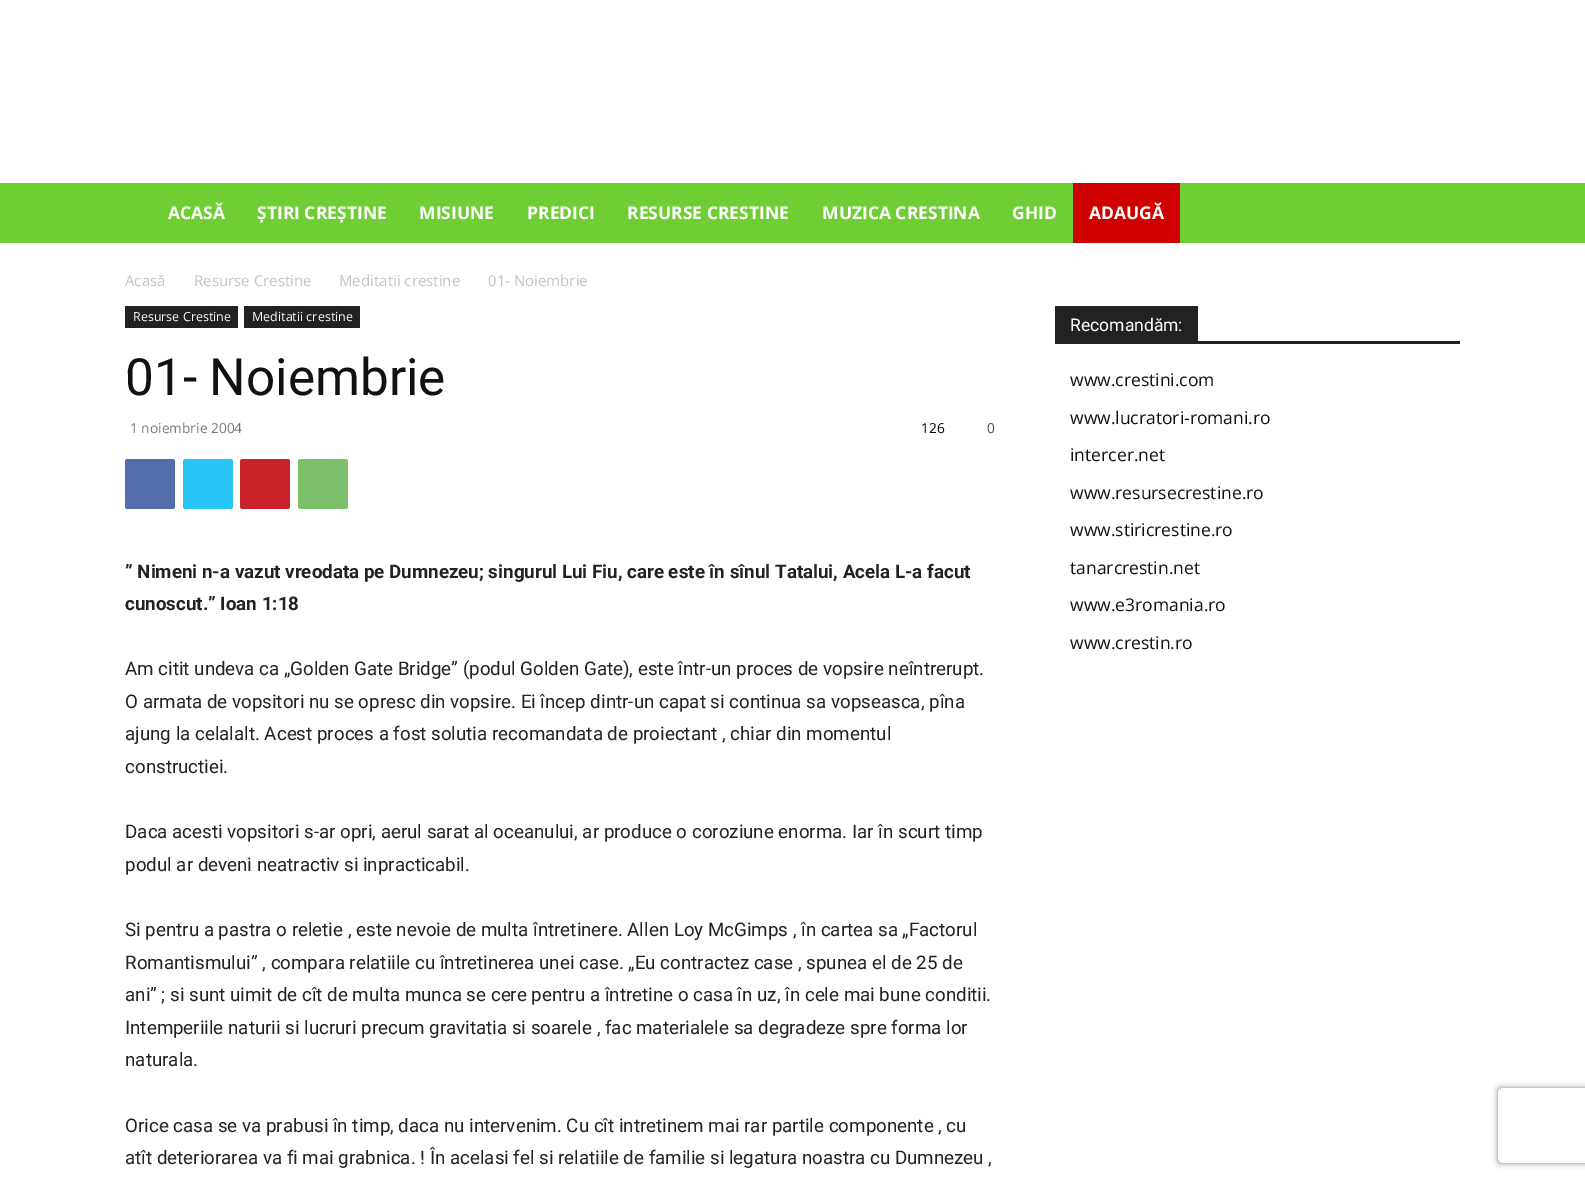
%!PS
<< /PageSize [1585 1179] /PageUsesTransparency true >> setpagedevice
/alpha { dup .setfillconstantalpha .setstrokeconstantalpha } def
/roundrect { 5 dict begin { /r /h /w /y /x } { exch def } forall
  x r add y moveto x w add y 2 copy h add r arct x w add y h add x 1 index r arct
  x y h add x y r arct x y 2 copy exch w add exch r arct closepath end } def
/shadow { 12 dict begin { /a /b /q /h /w /y /x } { exch def } forall gsave /was 0 def
  9 -2 -9 { dup b mul 4 div /e exch def 1 sub .425 mul 2.718 exch exp 1 add a .99 .min exch div /now exch def
    1 1 now sub 1 was sub div sub alpha /was now def
    w h .min e 2 mul add 0 gt { x e sub y e sub w e 2 mul add h e 2 mul add
      q e add b .6 mul add w h .min 2 div e add .min 0 .max roundrect fill } if } for grestore end } def
0 .pushpdf14devicefilter
0 1179 translate 1 -1 scale
4 setmiterlimit
1 setgray
0 0 1585 1179 rectfill
0.439 0.808 0.208 setrgbcolor
0 183 1585 60 rectfill
/OpenSans-Bold [17.5 0 0 -17.5 0 0] selectfont
1 setgray
168 219 moveto (ACASĂ) show
257 219 moveto (ȘTIRI CREȘTINE) show
419 219 moveto (MISIUNE) show
527 219 moveto (PREDICI) show
627 219 moveto (RESURSE CRESTINE) show
822 219 moveto (MUZICA CRESTINA) show
1012 219 moveto (GHID) show
0.812 0 0 setrgbcolor
1073 183 107 60 rectfill
1 setgray
1089 219 moveto (ADAUGĂ) show
/OpenSans-Regular [15 0 0 -15 0 0] selectfont
0.765 setgray
125 286 moveto (Acasă) show
194 286 moveto (Resurse Crestine) show
339 286 moveto (Meditatii crestine) show
488 286 moveto (01- Noiembrie) show
0.133 setgray
125 306 113 22 rectfill
/OpenSans-Regular [12.5 0 0 -12.5 0 0] selectfont
1 setgray
133 321 moveto (Resurse Crestine) show
0.133 setgray
244 306 116 22 rectfill
1 setgray
252 321 moveto (Meditatii crestine) show
/Roboto-Regular [51.25 0 0 -51.25 0 0] selectfont
0.067 setgray
125 395 moveto (01- Noiembrie) show
/OpenSans-Regular [13.75 0 0 -13.75 0 0] selectfont
0.463 setgray
130 433 moveto (1 noiembrie 2004) show
0 setgray
921 433 moveto (126) show
0.267 setgray
987 433 moveto (0) show
0.318 0.431 0.671 setrgbcolor
125 459 50 50 2.5 roundrect fill
0.161 0.773 0.965 setrgbcolor
183 459 50 50 2.5 roundrect fill
0.792 0.129 0.165 setrgbcolor
240 459 50 50 2.5 roundrect fill
0.482 0.749 0.416 setrgbcolor
298 459 50 50 2.5 roundrect fill
/Roboto-Bold [18.75 0 0 -18.75 0 0] selectfont
0.133 setgray
125 578 moveto (” Nimeni n-a vazut vreodata pe Dumnezeu; singurul Lui Fiu, care este în sînul Tatalui, Acela L-a facut) show
125 610 moveto (cunoscut.” Ioan 1:18) show
/Roboto-Regular [18.75 0 0 -18.75 0 0] selectfont
125 675 moveto (Am citit undeva ca „Golden Gate Bridge” \(podul Golden Gate\), este într-un proces de vopsire neîntrerupt.) show
125 708 moveto (O armata de vopsitori nu se opresc din vopsire. Ei încep dintr-un capat si continua sa vopseasca, pîna) show
125 740 moveto (ajung la celalalt. Acest proces a fost solutia recomandata de proiectant , chiar din momentul) show
125 773 moveto (constructiei.) show
125 838 moveto (Daca acesti vopsitori s-ar opri, aerul sarat al oceanului, ar produce o coroziune enorma. Iar în scurt timp) show
125 871 moveto (podul ar deveni neatractiv si inpracticabil.) show
125 936 moveto (Si pentru a pastra o reletie , este nevoie de multa întretinere. Allen Loy McGimps , în cartea sa „Factorul) show
125 969 moveto (Romantismului” , compara relatiile cu întretinerea unei case. „Eu contractez case , spunea el de 25 de) show
125 1001 moveto (ani” ; si sunt uimit de cît de multa munca se cere pentru a întretine o casa în uz, în cele mai bune conditii.) show
125 1034 moveto (Intemperiile naturii si lucruri precum gravitatia si soarele , fac materialele sa degradeze spre forma lor) show
125 1066 moveto (naturala.) show
125 1132 moveto (Orice casa se va prabusi în timp, daca nu intervenim. Cu cît intretinem mai rar partile componente , cu) show
125 1164 moveto (atît deteriorarea va fi mai grabnica. ! În acelasi fel si relatiile de familie si legatura noastra cu Dumnezeu ,) show
1055 341 405 3 rectfill
1055 306 143 35 rectfill
/Roboto-Regular [17.5 0 0 -17.5 0 0] selectfont
1 setgray
1070 331 moveto (Recomandăm:) show
/OpenSans-Regular [17.5 0 0 -17.5 0 0] selectfont
0.067 setgray
1070 386 moveto (www.crestini.com) show
1070 424 moveto (www.lucratori-romani.ro) show
1070 461 moveto (intercer.net) show
1070 499 moveto (www.resursecrestine.ro) show
1070 536 moveto (www.stiricrestine.ro) show
1070 574 moveto (tanarcrestin.net) show
1070 611 moveto (www.e3romania.ro) show
1070 649 moveto (www.crestin.ro) show
gsave
newpath 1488 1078 moveto 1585 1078 lineto 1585 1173 lineto 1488 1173 lineto closepath 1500.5 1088 moveto 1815.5 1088 lineto 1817 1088 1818 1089 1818 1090.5 curveto 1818 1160.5 lineto 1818 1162 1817 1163 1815.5 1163 curveto 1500.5 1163 lineto 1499 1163 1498 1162 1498 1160.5 curveto 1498 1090.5 lineto 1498 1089 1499 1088 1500.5 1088 curveto closepath eoclip newpath
0.502 setgray
1498 1088 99 75 2.5 3 1 shadow
grestore
.poppdf14devicefilter showpage
